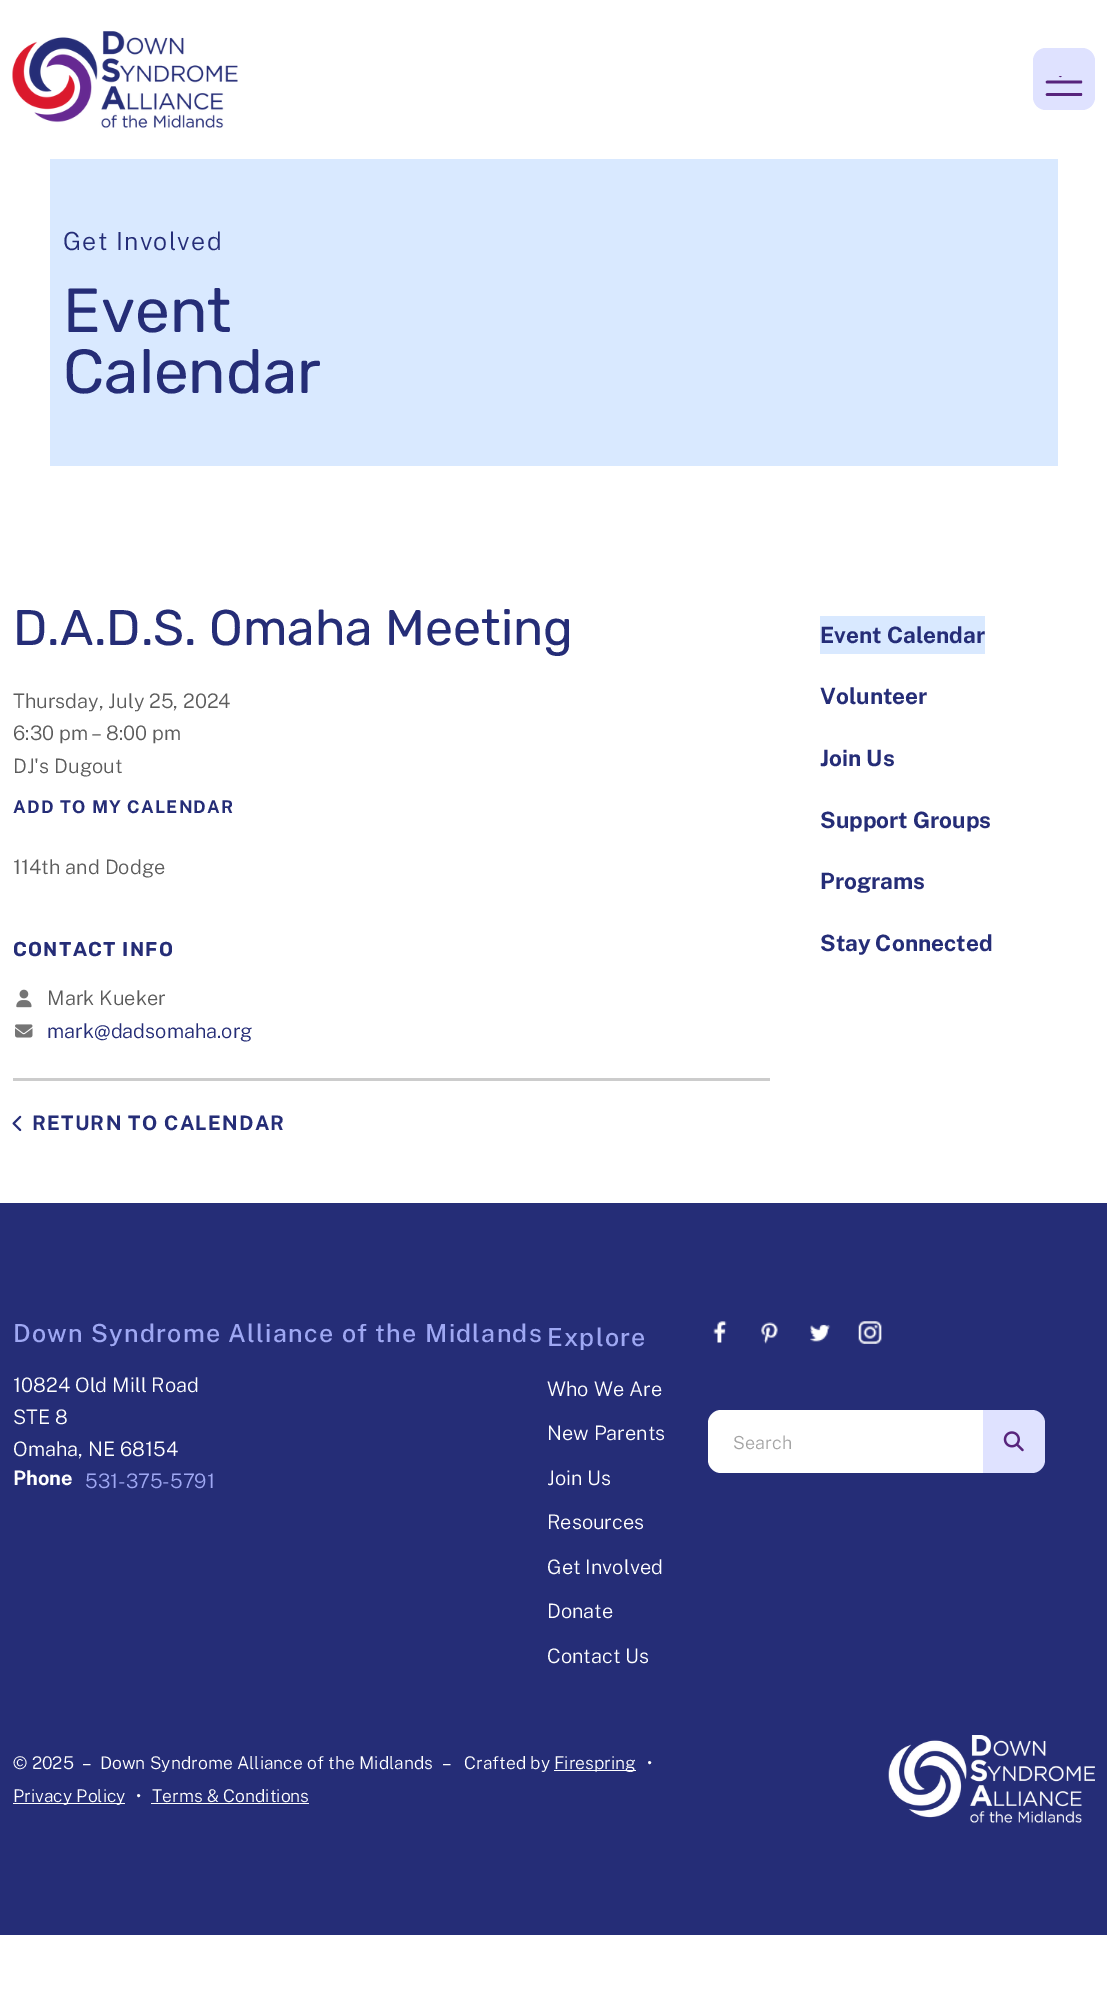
%!PS
<< /PageSize [1107 1992] >> setpagedevice
/roundrect { 5 dict begin { /r /h /w /y /x } { exch def } forall
  x r add y moveto x w add y 2 copy h add r arct x w add y h add x 1 index r arct
  x y h add x y r arct x y 2 copy exch w add exch r arct closepath end } def
/picture { 5 dict begin { /h /w /y /x /name } { exch def } forall
  gsave x y translate w h scale
  w h 8 [w 0 0 h 0 0] name (r) file false 3 colorimage grestore end } def
0 1992 translate 1 -1 scale
4 setmiterlimit
1 setgray
0 0 1107 1992 rectfill
(img1.rgb) 12 31 226 97 picture
0.875 0.886 1 setrgbcolor
1033 48 62 62 13 roundrect fill
(img2.rgb) 1045 76 38 20 picture
0.851 0.914 1 setrgbcolor
50 159 1008 307 rectfill
/PublicSans-Light [25 0 0 -25 0 0] selectfont
0.145 0.176 0.467 setrgbcolor
63 250 moveto 1.25 0 (Get Involved) ashow
/Rubik-Regular [62 0 0 -62 0 0] selectfont
63 332 moveto (Event) show
63 393 moveto (Calendar) show
0.8 setgray
13 1078 757 3 rectfill
/Rubik-Regular [50 0 0 -50 0 0] selectfont
0.145 0.176 0.467 setrgbcolor
13 645 moveto (D.A.D.S. Omaha Meeting) show
/PublicSans-Light [20 0 0 -20 0 0] selectfont
0.361 setgray
13 708 moveto (Thursday, July 25, 2024) show
13 740 moveto (6:30 pm) show
91 740 moveto (–) show
106 740 moveto (8:00 pm) show
13 773 moveto (DJ's Dugout) show
/PublicSans-Bold [17.5 0 0 -17.5 0 0] selectfont
0.145 0.176 0.467 setrgbcolor
13 813 moveto 1.25 0 (ADD TO MY CALENDAR) ashow
/PublicSans-Light [20 0 0 -20 0 0] selectfont
0.361 setgray
13 874 moveto (114th and Dodge) show
/Rubik-SemiBold [20 0 0 -20 0 0] selectfont
0.145 0.176 0.467 setrgbcolor
13 956 moveto 1.25 0 (CONTACT INFO) ashow
(img3.rgb) 16 989 16 19 picture
/PublicSans-Light [20 0 0 -20 0 0] selectfont
0.361 setgray
47 1005 moveto (Mark Kueker) show
(img4.rgb) 15 1024 18 14 picture
0.145 0.176 0.467 setrgbcolor
47 1038 moveto (mark@dadsomaha.org) show
(img5.rgb) 12 1115 10 17 picture
/PublicSans-Bold [20 0 0 -20 0 0] selectfont
32 1130 moveto 1.25 0 (RETURN TO CALENDAR) ashow
0.851 0.914 1 setrgbcolor
820 616 165 38 rectfill
/PublicSans-Bold [22.5 0 0 -22.5 0 0] selectfont
0.145 0.176 0.467 setrgbcolor
820 643 moveto (Event Calendar) show
820 704 moveto (Volunteer) show
820 766 moveto (Join Us) show
820 828 moveto (Support Groups) show
820 889 moveto (Programs) show
820 951 moveto (Stay Connected) show
0 1203 1107 732 rectfill
/PublicSans-Medium [25 0 0 -25 0 0] selectfont
0.624 0.659 0.953 setrgbcolor
13 1342 moveto 1.25 0 (Down Syndrome Alliance of the Midlands) ashow
/PublicSans-Light [20 0 0 -20 0 0] selectfont
1 setgray
13 1392 moveto (10824 Old Mill Road) show
13 1424 moveto (STE 8) show
13 1456 moveto (Omaha, NE 68154) show
/PublicSans-Bold [20 0 0 -20 0 0] selectfont
13 1485 moveto (Phone) show
/PublicSans-Light [20 0 0 -20 0 0] selectfont
0.624 0.659 0.953 setrgbcolor
85 1488 moveto (531-375-5791) show
/PublicSans-Medium [25 0 0 -25 0 0] selectfont
547 1346 moveto 1.25 0 (Explore) ashow
/PublicSans-Light [20 0 0 -20 0 0] selectfont
1 setgray
547 1396 moveto (Who We Are) show
547 1440 moveto (New Parents) show
547 1485 moveto (Join Us) show
547 1529 moveto (Resources) show
547 1574 moveto (Get Involved) show
547 1618 moveto (Donate) show
547 1663 moveto (Contact Us) show
(img6.rgb) 713 1321 14 22 picture
(img7.rgb) 761 1322 17 22 picture
(img8.rgb) 810 1324 21 18 picture
(img9.rgb) 858 1321 24 23 picture
newpath 721 1410 moveto 983 1410 lineto 983 1473 lineto 721 1473 lineto 714 1473 708 1467 708 1460 curveto 708 1423 lineto 708 1416 714 1410 721 1410 curveto closepath fill
/PublicSans-Light [18 0 0 -18 0 0] selectfont
0.643 setgray
733 1449 moveto (Search) show
0.875 0.886 1 setrgbcolor
newpath 983 1410 moveto 1032 1410 lineto 1039 1410 1045 1416 1045 1423 curveto 1045 1460 lineto 1045 1467 1039 1473 1032 1473 curveto 983 1473 lineto closepath fill
(img10.rgb) 1003 1431 21 21 picture
/PublicSans-Light [17.5 0 0 -17.5 0 0] selectfont
1 setgray
13 1769 moveto (© 2025) show
82 1769 moveto (–) show
100 1769 moveto (Down Syndrome Alliance of the Midlands) show
442 1769 moveto (–) show
464 1769 moveto (Crafted by) show
554 1770 82 1 rectfill
554 1769 moveto (Firespring) show
647 1769 moveto (•) show
13 1803 112 1 rectfill
13 1802 moveto (Privacy Policy) show
136 1802 moveto (•) show
152 1802 moveto (Terms & Conditions) show
151 1803 158 1 rectfill
(img11.rgb) 888 1735 207 88 picture
showpage
